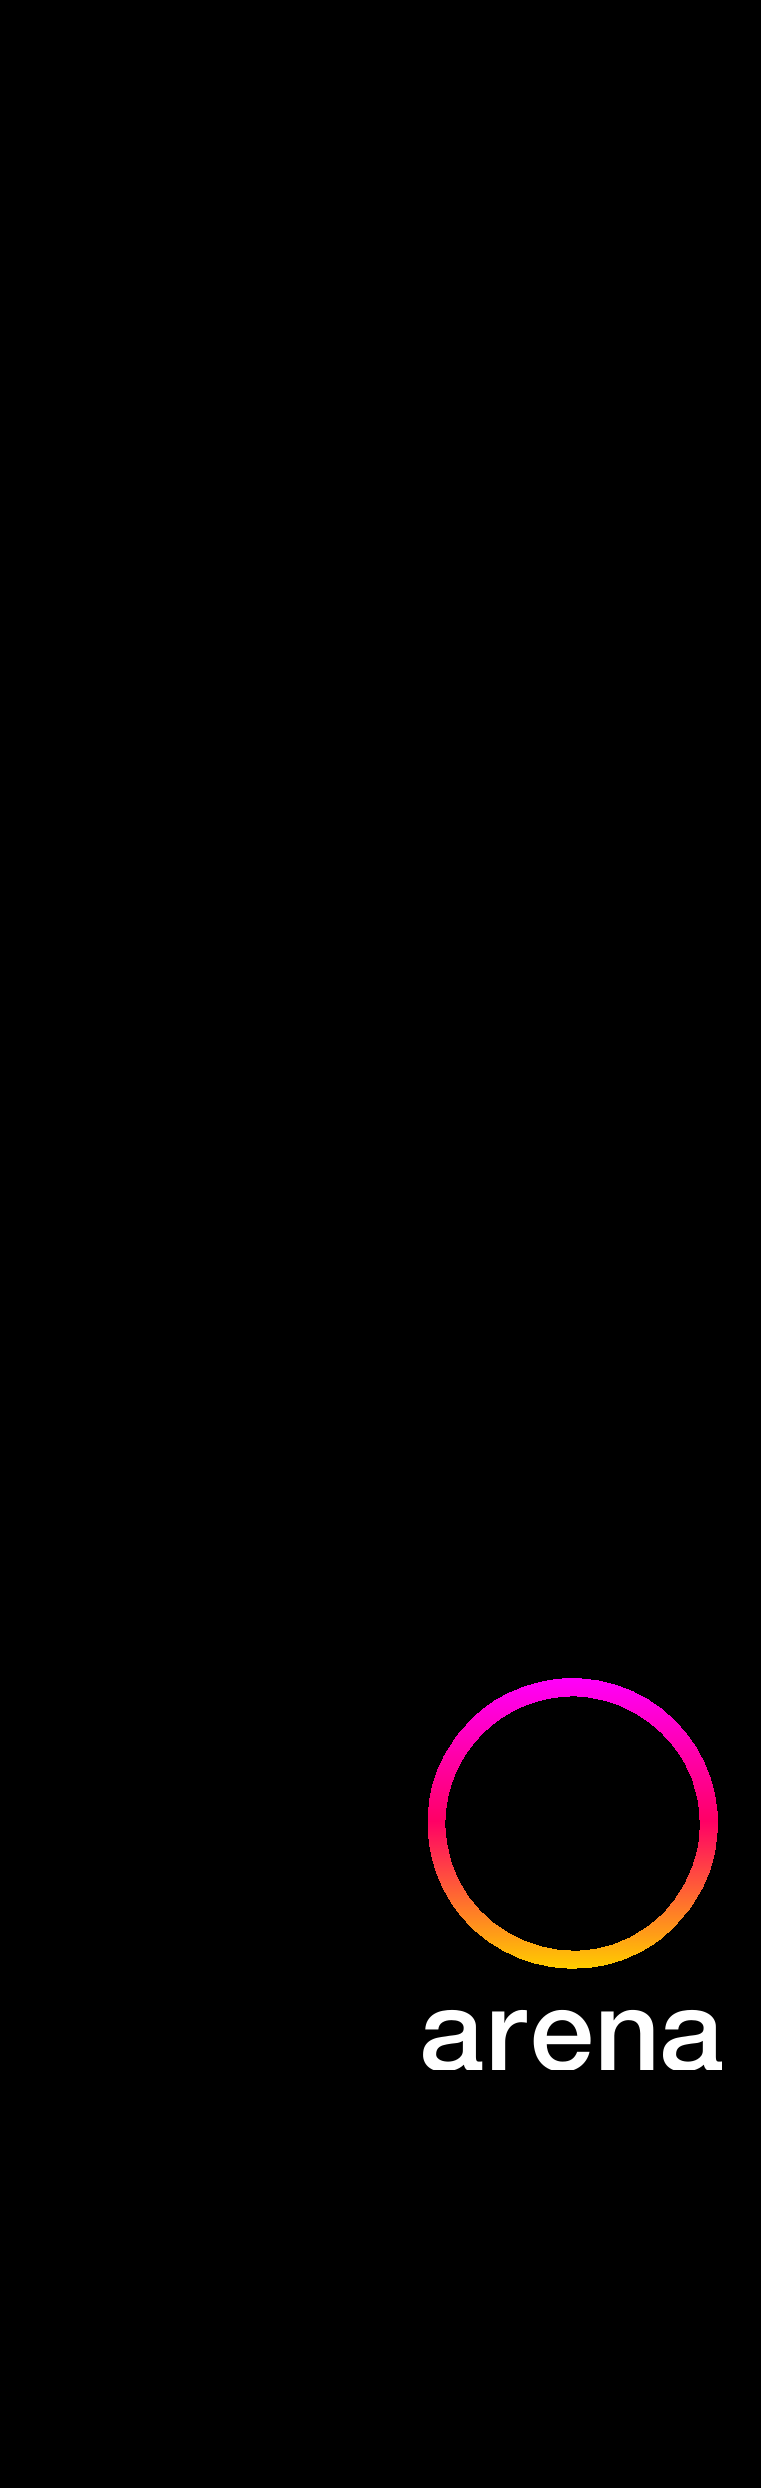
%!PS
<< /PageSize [761 2488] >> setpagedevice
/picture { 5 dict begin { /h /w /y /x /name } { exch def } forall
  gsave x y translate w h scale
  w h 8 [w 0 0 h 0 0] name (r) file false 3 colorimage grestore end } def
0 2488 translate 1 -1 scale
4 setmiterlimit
0 setgray
0 0 761 2488 rectfill
gsave newpath 445 1823 moveto 445 1937 583 1994 663 1914 curveto 681 1896 693 1873 698 1848 curveto 704 1817 699 1785 682 1758 curveto 659 1720 617 1696 573 1696 curveto 573 1700 lineto 573 1696 lineto 502 1696 445 1753 445 1823 curveto closepath 492 1703 moveto 513 1689 537 1681 562 1679 curveto 663 1672 741 1768 711 1866 curveto 702 1896 682 1923 656 1942 curveto 571 2002 451 1954 431 1852 curveto 426 1827 427 1802 435 1778 curveto 445 1748 465 1721 492 1703 curveto closepath eoclip newpath
<< /ShadingType 2 /ColorSpace /DeviceRGB /Coords [573 1968 573 1674] /Extend [true true] /Function << /FunctionType 3 /Domain [0 1] /Functions [<< /FunctionType 2 /Domain [0 1] /C0 [1 0.8 0] /C1 [1 0 0.4] /N 1 >> << /FunctionType 2 /Domain [0 1] /C0 [1 0 0.4] /C1 [1 0 1] /N 1 >>] /Bounds [0.5] /Encode [0 1 0 1] >> >> shfill grestore
(img1.rgb) 423 2009 299 61 picture
showpage
